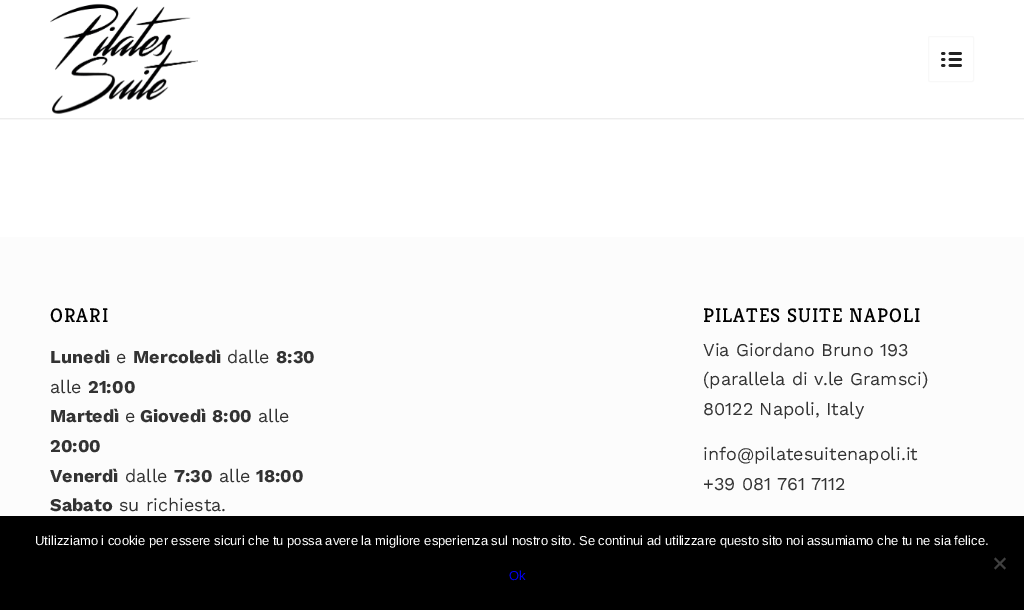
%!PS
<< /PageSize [1024 610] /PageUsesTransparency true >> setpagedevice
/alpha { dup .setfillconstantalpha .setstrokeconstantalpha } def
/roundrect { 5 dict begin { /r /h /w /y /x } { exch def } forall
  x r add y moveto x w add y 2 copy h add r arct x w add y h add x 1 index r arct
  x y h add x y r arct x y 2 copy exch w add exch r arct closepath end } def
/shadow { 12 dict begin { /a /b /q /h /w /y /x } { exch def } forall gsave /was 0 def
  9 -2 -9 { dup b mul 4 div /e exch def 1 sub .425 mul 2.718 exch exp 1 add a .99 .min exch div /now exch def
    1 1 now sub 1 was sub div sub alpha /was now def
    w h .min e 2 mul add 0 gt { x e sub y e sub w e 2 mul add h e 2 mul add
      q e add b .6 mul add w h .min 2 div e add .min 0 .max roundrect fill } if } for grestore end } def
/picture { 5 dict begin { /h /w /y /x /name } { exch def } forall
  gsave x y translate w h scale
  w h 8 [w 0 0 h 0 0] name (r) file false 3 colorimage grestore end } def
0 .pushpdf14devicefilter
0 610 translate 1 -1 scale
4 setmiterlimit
1 setgray
0 0 1024 610 rectfill
gsave
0 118 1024 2 rectclip
0 setgray
-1 -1 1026 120 0 1 0.1 shadow
grestore
(img1.rgb) 50 3 148 111 picture
0.973 setgray
928.5 36.5 45 45 1.5 roundrect stroke
(img2.rgb) 941 52 21 15 picture
0.988 setgray
0 237 1024 279 rectfill
/Kreon-Light [19.75 0 0 -19.75 0 0] selectfont
0 setgray
50 322 moveto 1 0 (ORARI) ashow
/WorkSans-Bold [18 0 0 -18 0 0] selectfont
0.2 setgray
50 363 moveto (Lunedì) show
/WorkSans-Regular [18 0 0 -18 0 0] selectfont
116 363 moveto (e) show
/WorkSans-Bold [18 0 0 -18 0 0] selectfont
133 363 moveto (Mercoledì) show
/WorkSans-Regular [18 0 0 -18 0 0] selectfont
227 363 moveto (dalle) show
/WorkSans-Bold [18 0 0 -18 0 0] selectfont
276 363 moveto (8:30) show
/WorkSans-Regular [18 0 0 -18 0 0] selectfont
50 393 moveto (alle) show
/WorkSans-Bold [18 0 0 -18 0 0] selectfont
88 393 moveto (21:00) show
50 422 moveto (Martedì) show
/WorkSans-Regular [18 0 0 -18 0 0] selectfont
125 422 moveto (e) show
/WorkSans-Bold [18 0 0 -18 0 0] selectfont
140 422 moveto (Giovedì) show
212 422 moveto (8:00) show
/WorkSans-Regular [18 0 0 -18 0 0] selectfont
258 422 moveto (alle) show
/WorkSans-Bold [18 0 0 -18 0 0] selectfont
50 452 moveto (20:00) show
50 482 moveto (Venerdì) show
/WorkSans-Regular [18 0 0 -18 0 0] selectfont
125 482 moveto (dalle) show
/WorkSans-Bold [18 0 0 -18 0 0] selectfont
174 482 moveto (7:30) show
/WorkSans-Regular [18 0 0 -18 0 0] selectfont
219 482 moveto (alle) show
/WorkSans-Bold [18 0 0 -18 0 0] selectfont
256 482 moveto (18:00) show
50 511 moveto (Sabato) show
/WorkSans-Regular [18 0 0 -18 0 0] selectfont
119 511 moveto (su richiesta.) show
/Kreon-Light [19.75 0 0 -19.75 0 0] selectfont
0 setgray
703 322 moveto 1 0 (PILATES SUITE NAPOLI) ashow
/WorkSans-Regular [18 0 0 -18 0 0] selectfont
0.2 setgray
703 356 moveto (Via Giordano Bruno 193) show
703 385 moveto (\(parallela di v.le Gramsci\)) show
703 415 moveto (80122 Napoli, Italy) show
703 460 moveto (info@pilatesuitenapoli.it) show
703 490 moveto (+39 081 761 7112) show
0 setgray
0 516 1024 94 rectfill
/LiberationSans-Regular [13 0 0 -13 0 0] selectfont
1 setgray
35 545 moveto (Utilizziamo i cookie per essere sicuri che tu possa avere la migliore esperienza sul nostro sito. Se continui ad utilizzare questo sito noi assumiamo che tu ne sia felice.) show
0.251 setgray
newpath 1004.5 557.5 moveto 1006 559 lineto 995.5 569.5 lineto 994 568 lineto closepath fill
newpath 994 559 moveto 995.5 557.5 lineto 1006 568 lineto 1004.5 569.5 lineto closepath fill
0 0 0.933 setrgbcolor
509 580 moveto (Ok) show
.poppdf14devicefilter showpage
